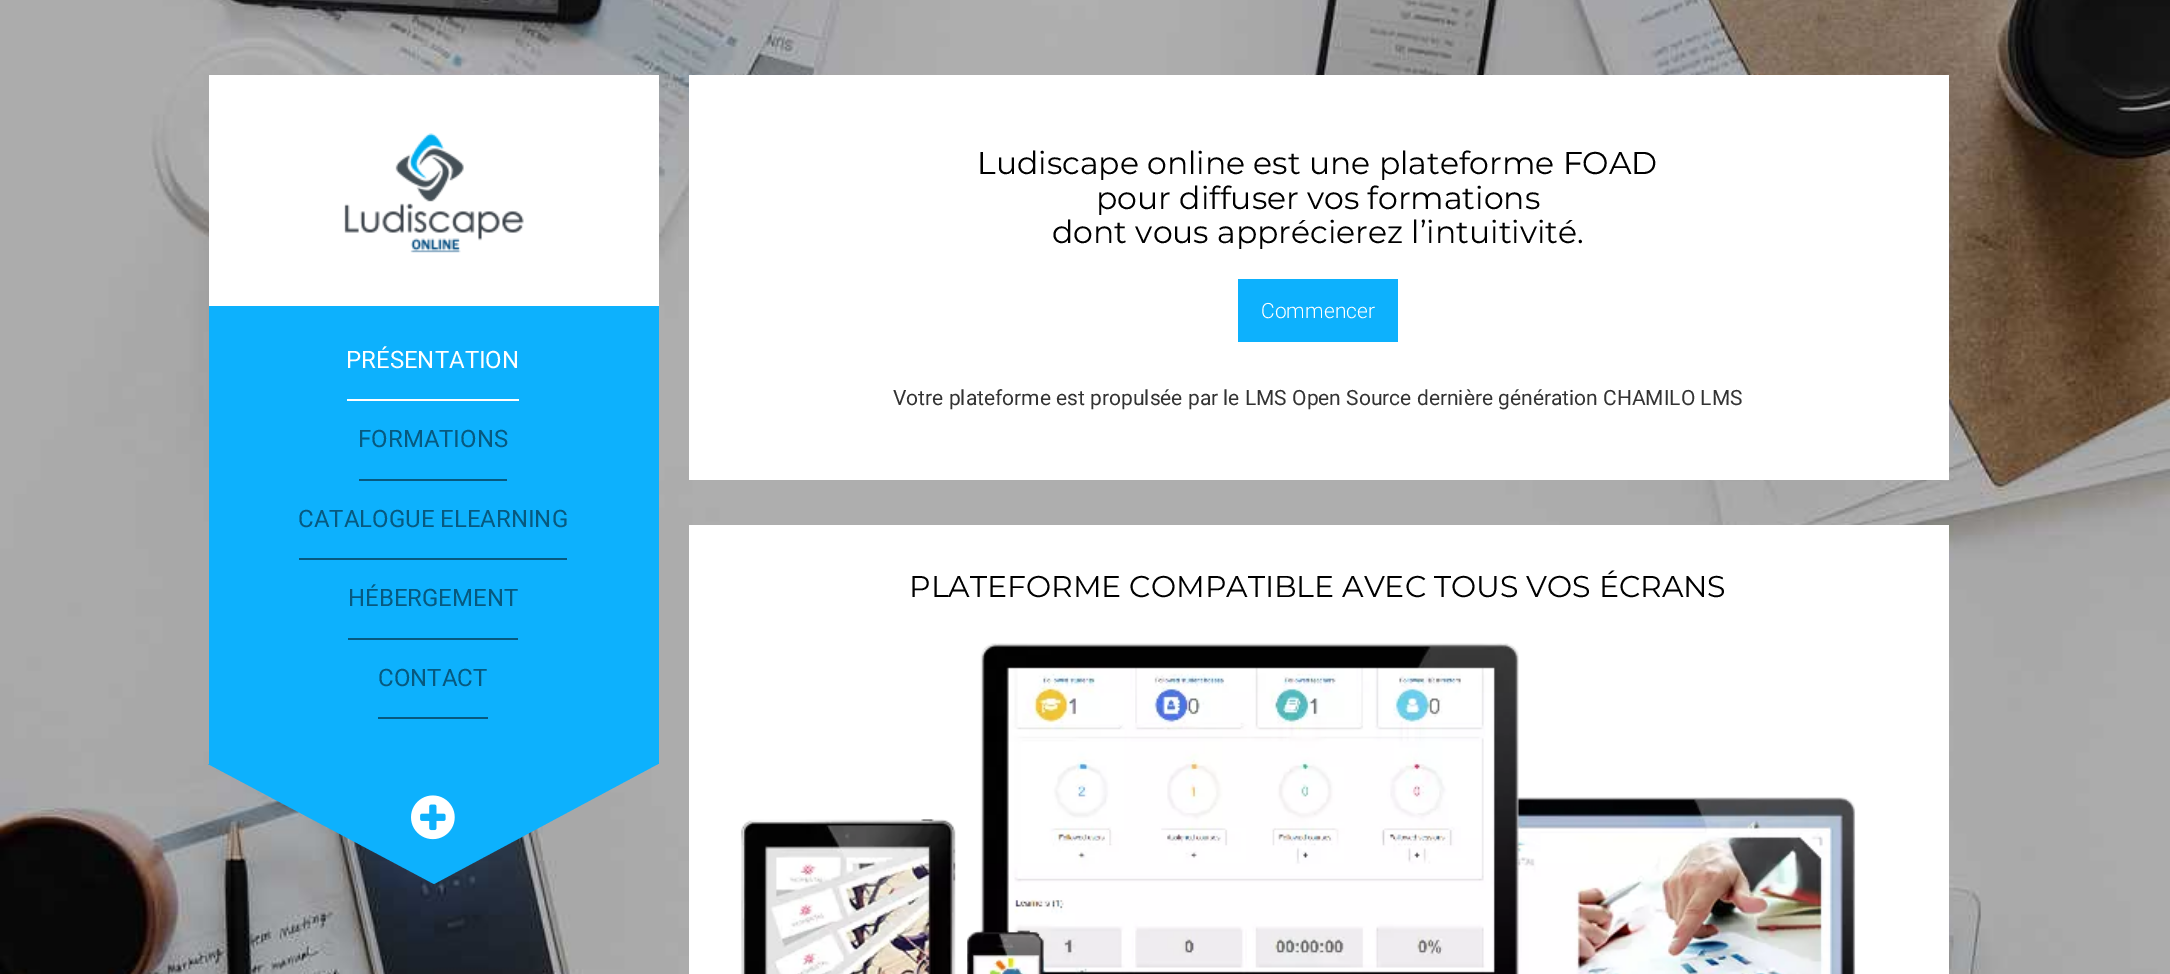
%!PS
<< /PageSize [2170 974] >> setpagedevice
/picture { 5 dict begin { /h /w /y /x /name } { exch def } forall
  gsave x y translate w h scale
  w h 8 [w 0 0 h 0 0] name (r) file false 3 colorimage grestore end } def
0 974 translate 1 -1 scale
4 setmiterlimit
1 setgray
0 0 2170 974 rectfill
(img1.rgb) 0 0 2170 974 picture
209 75 450 231 rectfill
(img2.rgb) 344 133 180 120 picture
0.051 0.694 0.992 setrgbcolor
209 306 450 458 rectfill
1 setgray
347 399 172 2 rectfill
/Roboto-Regular [24 0 0 -24 0 0] selectfont
346 368 moveto (PRÉSENTATION) show
0.027 0.349 0.498 setrgbcolor
359 479 148 2 rectfill
358 447 moveto (FORMATIONS) show
299 558 268 2 rectfill
298 527 moveto (CATALOGUE ELEARNING) show
348 638 170 2 rectfill
348 606 moveto (HÉBERGEMENT) show
378 717 110 2 rectfill
378 686 moveto (CONTACT) show
0.051 0.694 0.992 setrgbcolor
newpath 208 764 moveto 658 764 lineto 434 884 lineto closepath fill
(img3.rgb) 411 795 44 45 picture
1 setgray
689 75 1260 405 rectfill
/Montserrat-Regular [31.5 0 0 -31.5 0 0] selectfont
0 setgray
977 174 moveto (Ludiscape online est une plateforme FOAD) show
1096 209 moveto (pour diffuser vos formations) show
1052 243 moveto (dont vous apprécierez l’intuitivité.) show
0.051 0.694 0.992 setrgbcolor
1238 279 160 63 rectfill
/Roboto-Light [21 0 0 -21 0 0] selectfont
1 setgray
1261 318 moveto (Commencer) show
/Roboto-Regular [21 0 0 -21 0 0] selectfont
0.2 setgray
893 405 moveto (Votre plateforme est propulsée par le LMS Open Source dernière génération CHAMILO LMS) show
1 setgray
689 525 1260 449 rectfill
/Montserrat-Regular [30 0 0 -30 0 0] selectfont
0 setgray
909 597 moveto (PLATEFORME COMPATIBLE AVEC TOUS VOS ÉCRANS) show
(img4.rgb) 740 643 1116 331 picture
showpage
